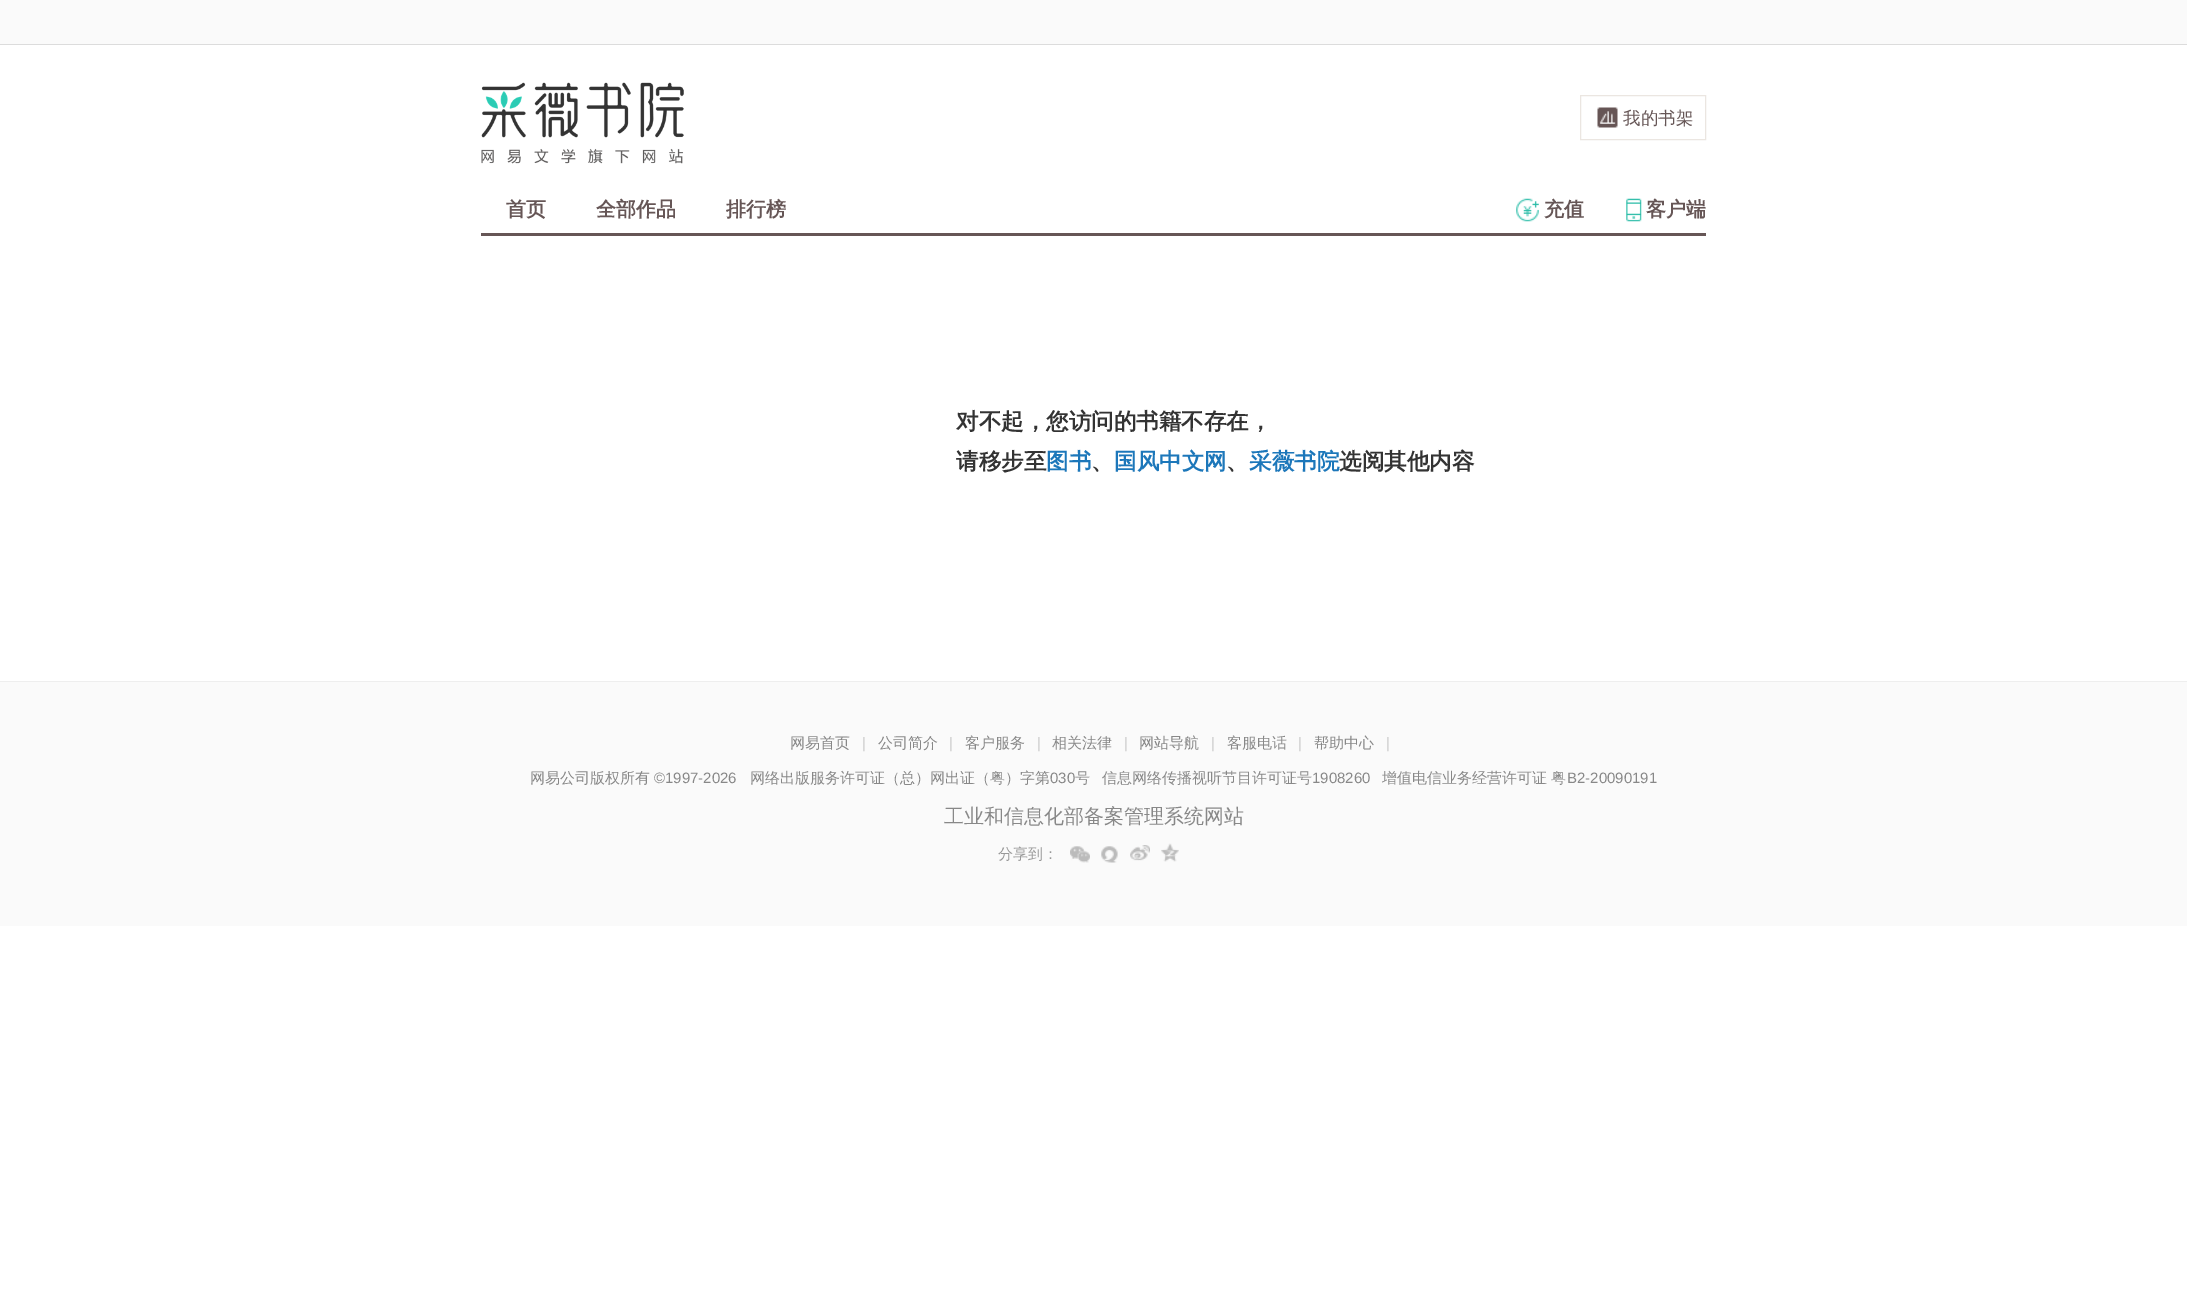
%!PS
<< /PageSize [2187 1290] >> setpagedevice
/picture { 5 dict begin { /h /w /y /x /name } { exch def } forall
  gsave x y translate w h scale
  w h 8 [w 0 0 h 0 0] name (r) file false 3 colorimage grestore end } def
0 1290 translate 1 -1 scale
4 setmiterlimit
1 setgray
0 0 2187 1290 rectfill
0.98 setgray
0 0 2187 44 rectfill
0.863 setgray
0 44 2187 1 rectfill
(img1.rgb) 481 82 203 82 picture
(img2.rgb) 1597 107 21 21 picture
0.922 0.902 0.882 setrgbcolor
1580.5 95.5 125 44 rectstroke
/WenQuanYiZenHei-Medium [17.5 0 0 -17.5 0 0] selectfont
0.4 0.337 0.337 setrgbcolor
1623 124 moveto (我的书架) show
481 233 1225 3 rectfill
/WenQuanYiZenHei-Bold [20 0 0 -20 0 0] selectfont
506 216 moveto (首页) show
596 216 moveto (全部作品) show
726 216 moveto (排行榜) show
(img3.rgb) 1516 198 23 24 picture
1544 216 moveto (充值) show
(img4.rgb) 1626 198 16 24 picture
1646 216 moveto (客户端) show
/WenQuanYiZenHei-Bold [22.5 0 0 -22.5 0 0] selectfont
0.2 setgray
956 429 moveto (对不起，您访问的书籍不存在，) show
956 469 moveto (请移步至) show
0.11 0.467 0.729 setrgbcolor
1046 469 moveto (图书) show
0.2 setgray
1091 469 moveto (、) show
0.11 0.467 0.729 setrgbcolor
1114 469 moveto (国风中文网) show
0.2 setgray
1226 469 moveto (、) show
0.11 0.467 0.729 setrgbcolor
1249 469 moveto (采薇书院) show
0.2 setgray
1339 469 moveto (选阅其他内容) show
0.98 setgray
0 682 2187 244 rectfill
0.933 setgray
0 681 2187 1 rectfill
/WenQuanYiZenHei-Medium [15 0 0 -15 0 0] selectfont
0.533 setgray
790 748 moveto (网易首页) show
/LiberationSans-Regular [15 0 0 -15 0 0] selectfont
0.8 setgray
862 748 moveto (|) show
/WenQuanYiZenHei-Medium [15 0 0 -15 0 0] selectfont
0.533 setgray
878 748 moveto (公司简介) show
/LiberationSans-Regular [15 0 0 -15 0 0] selectfont
0.8 setgray
949 748 moveto (|) show
/WenQuanYiZenHei-Medium [15 0 0 -15 0 0] selectfont
0.533 setgray
965 748 moveto (客户服务) show
/LiberationSans-Regular [15 0 0 -15 0 0] selectfont
0.8 setgray
1037 748 moveto (|) show
/WenQuanYiZenHei-Medium [15 0 0 -15 0 0] selectfont
0.533 setgray
1052 748 moveto (相关法律) show
/LiberationSans-Regular [15 0 0 -15 0 0] selectfont
0.8 setgray
1124 748 moveto (|) show
/WenQuanYiZenHei-Medium [15 0 0 -15 0 0] selectfont
0.533 setgray
1139 748 moveto (网站导航) show
/LiberationSans-Regular [15 0 0 -15 0 0] selectfont
0.8 setgray
1211 748 moveto (|) show
/WenQuanYiZenHei-Medium [15 0 0 -15 0 0] selectfont
0.533 setgray
1227 748 moveto (客服电话) show
/LiberationSans-Regular [15 0 0 -15 0 0] selectfont
0.8 setgray
1298 748 moveto (|) show
/WenQuanYiZenHei-Medium [15 0 0 -15 0 0] selectfont
0.533 setgray
1314 748 moveto (帮助中心) show
/LiberationSans-Regular [15 0 0 -15 0 0] selectfont
0.8 setgray
1386 748 moveto (|) show
/WenQuanYiZenHei-Medium [15 0 0 -15 0 0] selectfont
0.533 setgray
530 783 moveto (网易公司版权所有) show
/LiberationSans-Regular [15 0 0 -15 0 0] selectfont
654 783 moveto (©1997-2026) show
/WenQuanYiZenHei-Medium [15 0 0 -15 0 0] selectfont
750 783 moveto (网络出版服务许可证（总）网出证（粤）字第) show
/LiberationSans-Regular [15 0 0 -15 0 0] selectfont
1050 783 moveto (030) show
/WenQuanYiZenHei-Medium [15 0 0 -15 0 0] selectfont
1075 783 moveto (号) show
1102 783 moveto (信息网络传播视听节目许可证号) show
/LiberationSans-Regular [15 0 0 -15 0 0] selectfont
1312 783 moveto (1908260) show
/WenQuanYiZenHei-Medium [15 0 0 -15 0 0] selectfont
1382 783 moveto (增值电信业务经营许可证 粤) show
/LiberationSans-Regular [15 0 0 -15 0 0] selectfont
1567 783 moveto (B2-20090191) show
/WenQuanYiZenHei-Medium [20 0 0 -20 0 0] selectfont
944 823 moveto (工业和信息化部备案管理系统网站) show
/WenQuanYiZenHei-Medium [15 0 0 -15 0 0] selectfont
0.6 setgray
998 859 moveto (分享到：) show
(img5.rgb) 1070 846 20 17 picture
(img6.rgb) 1101 846 17 17 picture
(img7.rgb) 1130 845 20 16 picture
(img8.rgb) 1161 843 18 19 picture
showpage
